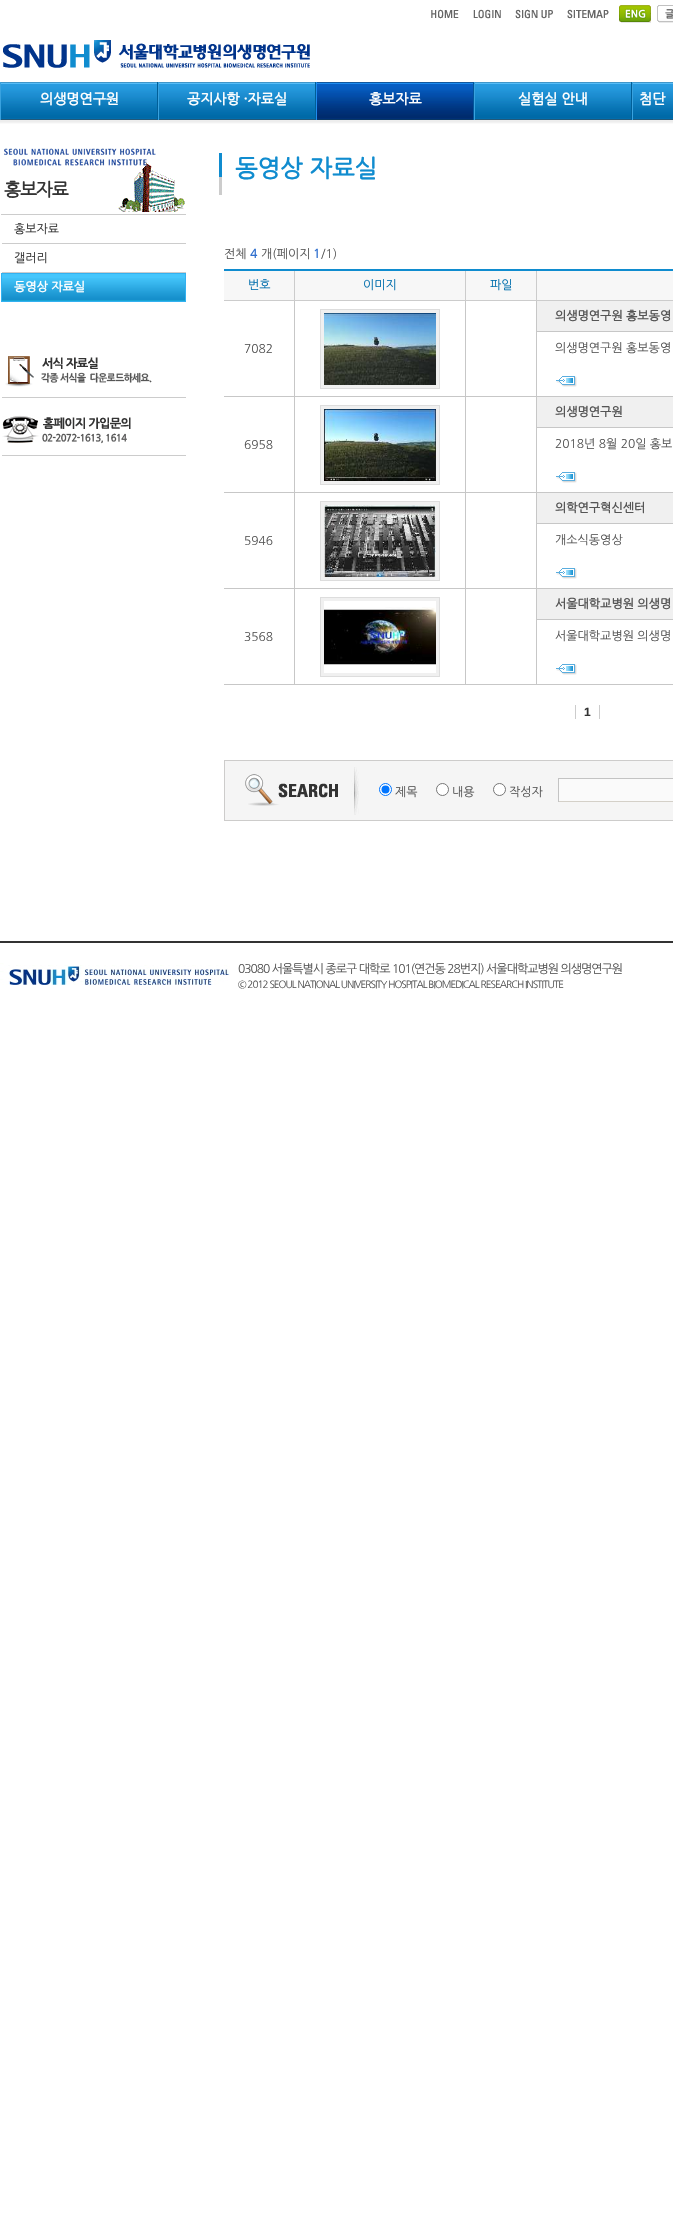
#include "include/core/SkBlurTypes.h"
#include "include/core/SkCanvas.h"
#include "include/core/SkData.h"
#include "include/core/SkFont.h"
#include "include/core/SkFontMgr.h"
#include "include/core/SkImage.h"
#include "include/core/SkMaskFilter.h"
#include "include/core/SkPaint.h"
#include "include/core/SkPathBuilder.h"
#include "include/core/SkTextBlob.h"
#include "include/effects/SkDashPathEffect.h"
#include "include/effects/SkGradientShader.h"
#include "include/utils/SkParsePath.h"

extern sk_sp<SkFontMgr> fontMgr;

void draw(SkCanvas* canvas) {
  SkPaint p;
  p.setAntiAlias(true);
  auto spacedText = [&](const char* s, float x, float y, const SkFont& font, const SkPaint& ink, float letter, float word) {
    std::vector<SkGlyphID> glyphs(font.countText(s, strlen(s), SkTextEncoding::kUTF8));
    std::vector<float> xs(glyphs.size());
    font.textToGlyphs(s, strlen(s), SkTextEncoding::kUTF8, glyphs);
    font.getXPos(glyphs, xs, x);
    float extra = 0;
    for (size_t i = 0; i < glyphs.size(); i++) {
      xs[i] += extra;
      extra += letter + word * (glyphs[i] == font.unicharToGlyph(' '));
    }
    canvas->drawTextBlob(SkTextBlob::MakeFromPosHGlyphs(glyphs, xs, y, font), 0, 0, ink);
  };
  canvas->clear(SK_ColorWHITE);
  canvas->drawImageRect(SkImages::DeferredFromEncodedData(SkData::MakeFromFileName("images/1.png")), SkRect::MakeLTRB(0, 82, 673, 124), SkSamplingOptions());
  canvas->drawImageRect(SkImages::DeferredFromEncodedData(SkData::MakeFromFileName("images/2.png")), SkRect::MakeLTRB(431, 9, 459, 19), SkSamplingOptions());
  canvas->drawImageRect(SkImages::DeferredFromEncodedData(SkData::MakeFromFileName("images/3.png")), SkRect::MakeLTRB(473, 9, 501, 19), SkSamplingOptions());
  canvas->drawImageRect(SkImages::DeferredFromEncodedData(SkData::MakeFromFileName("images/4.png")), SkRect::MakeLTRB(515, 9, 553, 19), SkSamplingOptions());
  canvas->drawImageRect(SkImages::DeferredFromEncodedData(SkData::MakeFromFileName("images/5.png")), SkRect::MakeLTRB(567, 9, 609, 19), SkSamplingOptions());
  canvas->drawImageRect(SkImages::DeferredFromEncodedData(SkData::MakeFromFileName("images/6.png")), SkRect::MakeLTRB(619, 5, 651, 23), SkSamplingOptions());
  canvas->drawImageRect(SkImages::DeferredFromEncodedData(SkData::MakeFromFileName("images/7.png")), SkRect::MakeLTRB(657, 5, 673, 23), SkSamplingOptions());
  canvas->drawImageRect(SkImages::DeferredFromEncodedData(SkData::MakeFromFileName("images/8.png")), SkRect::MakeLTRB(3, 40, 310, 68), SkSamplingOptions());
  p.setColor(SkColorSetRGB(35, 88, 120));
  canvas->drawRect(SkRect::MakeLTRB(0, 119, 316, 120), p);
  p.setColor(SkColorSetRGB(1, 95, 152));
  canvas->drawRect(SkRect::MakeLTRB(157, 82, 158, 120), p);
  p.setColor(SkColorSetRGB(57, 162, 223));
  canvas->drawRect(SkRect::MakeLTRB(0, 82, 1, 120), p);
  p.setColor(SkColorSetRGB(1, 95, 152));
  canvas->drawRect(SkRect::MakeLTRB(315, 82, 316, 120), p);
  p.setColor(SkColorSetRGB(57, 162, 223));
  canvas->drawRect(SkRect::MakeLTRB(158, 82, 159, 120), p);
  canvas->drawImageRect(SkImages::DeferredFromEncodedData(SkData::MakeFromFileName("images/9.png")), SkRect::MakeLTRB(317, 82, 473, 120), SkSamplingOptions());
  p.setColor(SkColorSetRGB(2, 86, 155));
  canvas->drawRect(SkRect::MakeLTRB(473, 82, 474, 120), p);
  p.setColor(SkColorSetRGB(30, 140, 239));
  canvas->drawRect(SkRect::MakeLTRB(316, 82, 317, 120), p);
  p.setColor(SkColorSetRGB(35, 88, 120));
  canvas->drawRect(SkRect::MakeLTRB(474, 119, 673, 120), p);
  p.setColor(SkColorSetRGB(1, 95, 152));
  canvas->drawRect(SkRect::MakeLTRB(631, 82, 632, 120), p);
  p.setColor(SkColorSetRGB(57, 162, 223));
  canvas->drawRect(SkRect::MakeLTRB(474, 82, 475, 120), p);
  canvas->drawRect(SkRect::MakeLTRB(632, 82, 633, 120), p);
  canvas->drawImageRect(SkImages::DeferredFromEncodedData(SkData::MakeFromFileName("images/10.png")), SkRect::MakeLTRB(4, 148, 185, 212), SkSamplingOptions());
  p.setColor(SkColorSetRGB(204, 204, 204));
  canvas->drawRect(SkRect::MakeLTRB(1, 214, 186, 215), p);
  canvas->drawRect(SkRect::MakeLTRB(1, 243, 186, 244), p);
  p.setColor(SK_ColorWHITE);
  canvas->drawRect(SkRect::MakeLTRB(1, 243, 2, 244), p);
  p.setColor(SkColorSetRGB(204, 204, 204));
  canvas->drawRect(SkRect::MakeLTRB(1, 272, 186, 273), p);
  p.setColor(SK_ColorWHITE);
  canvas->drawRect(SkRect::MakeLTRB(1, 272, 2, 273), p);
  p.setColor(SkColorSetRGB(69, 198, 252));
  canvas->drawRect(SkRect::MakeLTRB(2, 274, 185, 278), p);
  canvas->drawImageRect(SkImages::DeferredFromEncodedData(SkData::MakeFromFileName("images/11.png")), SkRect::MakeLTRB(2, 278, 185, 301), SkSamplingOptions());
  p.setStyle(SkPaint::kStroke_Style);
  p.setStrokeWidth(1);
  p.setColor(SkColorSetRGB(51, 177, 240));
  canvas->drawRect(SkRect::MakeLTRB(1.5f, 273.5f, 185.5f, 301.5f), p);
  p.setStyle(SkPaint::kFill_Style);
  p.setColor(SkColorSetRGB(204, 204, 204));
  canvas->drawRect(SkRect::MakeLTRB(2, 397, 186, 398), p);
  canvas->drawImageRect(SkImages::DeferredFromEncodedData(SkData::MakeFromFileName("images/12.png")), SkRect::MakeLTRB(5, 356, 152, 387), SkSamplingOptions());
  canvas->drawRect(SkRect::MakeLTRB(2, 455, 186, 456), p);
  canvas->drawImageRect(SkImages::DeferredFromEncodedData(SkData::MakeFromFileName("images/13.png")), SkRect::MakeLTRB(2, 415, 131, 444), SkSamplingOptions());
  canvas->drawImageRect(SkImages::DeferredFromEncodedData(SkData::MakeFromFileName("images/14.png")), SkRect::MakeLTRB(219, 153, 222, 195), SkSamplingOptions());
  p.setColor(SkColorSetRGB(199, 199, 199));
  canvas->drawRect(SkRect::MakeLTRB(536, 684, 673, 685), p);
  canvas->drawRect(SkRect::MakeLTRB(536, 588, 537, 685), p);
  canvas->drawRect(SkRect::MakeLTRB(536, 588, 673, 589), p);
  canvas->drawRect(SkRect::MakeLTRB(536, 492, 537, 589), p);
  canvas->drawRect(SkRect::MakeLTRB(536, 492, 673, 493), p);
  canvas->drawRect(SkRect::MakeLTRB(536, 396, 537, 493), p);
  canvas->drawRect(SkRect::MakeLTRB(536, 396, 673, 397), p);
  canvas->drawRect(SkRect::MakeLTRB(536, 300, 537, 397), p);
  p.setColor(SkColorSetRGB(204, 204, 204));
  canvas->drawRect(SkRect::MakeLTRB(536, 300, 673, 301), p);
  canvas->drawRect(SkRect::MakeLTRB(536, 270, 537, 301), p);
  p.setColor(SkColorSetRGB(199, 199, 199));
  canvas->drawRect(SkRect::MakeLTRB(465, 684, 537, 685), p);
  canvas->drawRect(SkRect::MakeLTRB(465, 588, 466, 685), p);
  canvas->drawRect(SkRect::MakeLTRB(465, 588, 537, 589), p);
  canvas->drawRect(SkRect::MakeLTRB(465, 492, 466, 589), p);
  canvas->drawRect(SkRect::MakeLTRB(465, 492, 537, 493), p);
  canvas->drawRect(SkRect::MakeLTRB(465, 396, 466, 493), p);
  canvas->drawRect(SkRect::MakeLTRB(465, 396, 537, 397), p);
  canvas->drawRect(SkRect::MakeLTRB(465, 300, 466, 397), p);
  p.setColor(SkColorSetRGB(204, 204, 204));
  canvas->drawRect(SkRect::MakeLTRB(465, 300, 537, 301), p);
  canvas->drawRect(SkRect::MakeLTRB(465, 270, 466, 301), p);
  p.setColor(SkColorSetRGB(199, 199, 199));
  canvas->drawRect(SkRect::MakeLTRB(294, 684, 466, 685), p);
  canvas->drawRect(SkRect::MakeLTRB(294, 588, 295, 685), p);
  canvas->drawRect(SkRect::MakeLTRB(294, 588, 466, 589), p);
  canvas->drawRect(SkRect::MakeLTRB(294, 492, 295, 589), p);
  canvas->drawRect(SkRect::MakeLTRB(294, 492, 466, 493), p);
  canvas->drawRect(SkRect::MakeLTRB(294, 396, 295, 493), p);
  canvas->drawRect(SkRect::MakeLTRB(294, 396, 466, 397), p);
  canvas->drawRect(SkRect::MakeLTRB(294, 300, 295, 397), p);
  p.setColor(SkColorSetRGB(204, 204, 204));
  canvas->drawRect(SkRect::MakeLTRB(294, 300, 466, 301), p);
  canvas->drawRect(SkRect::MakeLTRB(294, 270, 295, 301), p);
  p.setColor(SkColorSetRGB(16, 140, 207));
  canvas->drawRect(SkRect::MakeLTRB(224, 269, 673, 271), p);
  p.setColor(SkColorSetRGB(247, 247, 247));
  canvas->drawRect(SkRect::MakeLTRB(224, 271, 294, 300), p);
  p.setColor(SkColorSetRGB(204, 204, 204));
  canvas->drawRect(SkRect::MakeLTRB(224, 300, 295, 301), p);
  p.setColor(SkColorSetRGB(247, 247, 247));
  canvas->drawRect(SkRect::MakeLTRB(295, 271, 465, 300), p);
  canvas->drawRect(SkRect::MakeLTRB(466, 271, 536, 300), p);
  canvas->drawRect(SkRect::MakeLTRB(537, 271, 673, 300), p);
  p.setColor(SkColorSetRGB(199, 199, 199));
  canvas->drawRect(SkRect::MakeLTRB(224, 396, 295, 397), p);
  p.setStyle(SkPaint::kStroke_Style);
  p.setStrokeWidth(3);
  p.setColor(SkColorSetRGB(240, 240, 240));
  canvas->drawRect(SkRect::MakeLTRB(322.5f, 311.5f, 437.5f, 386.5f), p);
  canvas->drawImageRect(SkImages::DeferredFromEncodedData(SkData::MakeFromFileName("images/15.png")), SkRect::MakeLTRB(324, 313, 436, 385), SkSamplingOptions());
  p.setStrokeWidth(1);
  p.setColor(SkColorSetRGB(221, 221, 221));
  canvas->drawRect(SkRect::MakeLTRB(320.5f, 309.5f, 439.5f, 388.5f), p);
  p.setStyle(SkPaint::kFill_Style);
  p.setColor(SkColorSetRGB(240, 240, 240));
  canvas->drawRect(SkRect::MakeLTRB(537, 301, 673, 331), p);
  p.setColor(SkColorSetRGB(199, 199, 199));
  canvas->drawRect(SkRect::MakeLTRB(537, 331, 673, 332), p);
  canvas->drawImageRect(SkImages::DeferredFromEncodedData(SkData::MakeFromFileName("images/16.png")), SkRect::MakeLTRB(556, 376, 577, 387), SkSamplingOptions());
  canvas->drawRect(SkRect::MakeLTRB(224, 492, 295, 493), p);
  p.setStyle(SkPaint::kStroke_Style);
  p.setStrokeWidth(3);
  p.setColor(SkColorSetRGB(240, 240, 240));
  canvas->drawRect(SkRect::MakeLTRB(322.5f, 407.5f, 437.5f, 482.5f), p);
  canvas->drawImageRect(SkImages::DeferredFromEncodedData(SkData::MakeFromFileName("images/17.png")), SkRect::MakeLTRB(324, 409, 436, 481), SkSamplingOptions());
  p.setStrokeWidth(1);
  p.setColor(SkColorSetRGB(221, 221, 221));
  canvas->drawRect(SkRect::MakeLTRB(320.5f, 405.5f, 439.5f, 484.5f), p);
  p.setStyle(SkPaint::kFill_Style);
  p.setColor(SkColorSetRGB(240, 240, 240));
  canvas->drawRect(SkRect::MakeLTRB(537, 397, 673, 427), p);
  p.setColor(SkColorSetRGB(199, 199, 199));
  canvas->drawRect(SkRect::MakeLTRB(537, 427, 673, 428), p);
  canvas->drawImageRect(SkImages::DeferredFromEncodedData(SkData::MakeFromFileName("images/16.png")), SkRect::MakeLTRB(556, 472, 577, 483), SkSamplingOptions());
  canvas->drawRect(SkRect::MakeLTRB(224, 588, 295, 589), p);
  p.setStyle(SkPaint::kStroke_Style);
  p.setStrokeWidth(3);
  p.setColor(SkColorSetRGB(240, 240, 240));
  canvas->drawRect(SkRect::MakeLTRB(322.5f, 503.5f, 437.5f, 578.5f), p);
  canvas->drawImageRect(SkImages::DeferredFromEncodedData(SkData::MakeFromFileName("images/18.png")), SkRect::MakeLTRB(324, 505, 436, 577), SkSamplingOptions());
  p.setStrokeWidth(1);
  p.setColor(SkColorSetRGB(221, 221, 221));
  canvas->drawRect(SkRect::MakeLTRB(320.5f, 501.5f, 439.5f, 580.5f), p);
  p.setStyle(SkPaint::kFill_Style);
  p.setColor(SkColorSetRGB(240, 240, 240));
  canvas->drawRect(SkRect::MakeLTRB(537, 493, 673, 523), p);
  p.setColor(SkColorSetRGB(199, 199, 199));
  canvas->drawRect(SkRect::MakeLTRB(537, 523, 673, 524), p);
  canvas->drawImageRect(SkImages::DeferredFromEncodedData(SkData::MakeFromFileName("images/16.png")), SkRect::MakeLTRB(556, 568, 577, 579), SkSamplingOptions());
  canvas->drawRect(SkRect::MakeLTRB(224, 684, 295, 685), p);
  p.setStyle(SkPaint::kStroke_Style);
  p.setStrokeWidth(3);
  p.setColor(SkColorSetRGB(240, 240, 240));
  canvas->drawRect(SkRect::MakeLTRB(322.5f, 599.5f, 437.5f, 674.5f), p);
  canvas->drawImageRect(SkImages::DeferredFromEncodedData(SkData::MakeFromFileName("images/19.png")), SkRect::MakeLTRB(324, 607, 436, 665), SkSamplingOptions());
  p.setStrokeWidth(1);
  p.setColor(SkColorSetRGB(221, 221, 221));
  canvas->drawRect(SkRect::MakeLTRB(320.5f, 597.5f, 439.5f, 676.5f), p);
  p.setStyle(SkPaint::kFill_Style);
  p.setColor(SkColorSetRGB(240, 240, 240));
  canvas->drawRect(SkRect::MakeLTRB(537, 589, 673, 619), p);
  p.setColor(SkColorSetRGB(199, 199, 199));
  canvas->drawRect(SkRect::MakeLTRB(537, 619, 673, 620), p);
  canvas->drawImageRect(SkImages::DeferredFromEncodedData(SkData::MakeFromFileName("images/16.png")), SkRect::MakeLTRB(556, 664, 577, 675), SkSamplingOptions());
  p.setColor(SkColorSetRGB(204, 204, 204));
  canvas->drawRect(SkRect::MakeLTRB(599, 705, 600, 719), p);
  canvas->drawRect(SkRect::MakeLTRB(575, 705, 576, 719), p);
  p.setColor(SkColorSetRGB(245, 245, 245));
  canvas->drawRect(SkRect::MakeLTRB(224.5f, 760.5f, 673.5f, 820.5f), p);
  p.setStyle(SkPaint::kStroke_Style);
  p.setColor(SkColorSetRGB(205, 204, 203));
  canvas->drawRect(SkRect::MakeLTRB(224.5f, 760.5f, 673.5f, 820.5f), p);
  canvas->drawImageRect(SkImages::DeferredFromEncodedData(SkData::MakeFromFileName("images/20.png")), SkRect::MakeLTRB(245, 767, 359, 815), SkSamplingOptions());
  p.setStyle(SkPaint::kFill_Style);
  p.setColor(SK_ColorWHITE);
  canvas->drawCircle(385.5f, 789.5f, 6, p);
  p.setStyle(SkPaint::kStroke_Style);
  p.setColor(SkColorSetRGB(0, 117, 255));
  canvas->drawCircle(385.5f, 789.5f, 6, p);
  p.setStyle(SkPaint::kFill_Style);
  canvas->drawCircle(385.5f, 789.5f, 4, p);
  p.setColor(SK_ColorWHITE);
  canvas->drawCircle(442.5f, 789.5f, 6, p);
  p.setStyle(SkPaint::kStroke_Style);
  p.setColor(SkColorSetRGB(118, 118, 118));
  canvas->drawCircle(442.5f, 789.5f, 6, p);
  p.setStyle(SkPaint::kFill_Style);
  p.setColor(SK_ColorWHITE);
  canvas->drawCircle(499.5f, 789.5f, 6, p);
  p.setStyle(SkPaint::kStroke_Style);
  p.setColor(SkColorSetRGB(118, 118, 118));
  canvas->drawCircle(499.5f, 789.5f, 6, p);
  p.setStyle(SkPaint::kFill_Style);
  p.setColor(SkColorSetRGB(250, 250, 250));
  canvas->drawRect(SkRect::MakeLTRB(559, 779, 673, 801), p);
  p.setColor(SkColorSetRGB(195, 195, 195));
  canvas->drawRect(SkRect::MakeLTRB(558, 778, 673, 779), p);
  p.setColor(SkColorSetRGB(212, 208, 200));
  canvas->drawRect(SkRect::MakeLTRB(558, 801, 673, 802), p);
  p.setColor(SkColorSetRGB(195, 195, 195));
  canvas->drawRect(SkRect::MakeLTRB(558, 778, 559, 802), p);
  p.setColor(SkColorSetRGB(51, 51, 51));
  canvas->drawRect(SkRect::MakeLTRB(0, 941, 673, 943), p);
  canvas->drawImageRect(SkImages::DeferredFromEncodedData(SkData::MakeFromFileName("images/21.png")), SkRect::MakeLTRB(0, 963, 230, 985), SkSamplingOptions());
  SkFont font1(fontMgr->matchFamilyStyle("NanumGothic", SkFontStyle::Bold()), 14);
  font1.setSubpixel(true);
  p.setColor(SK_ColorWHITE);
  canvas->drawString("의생명연구원", 40, 104, font1, p);
  canvas->drawString("공지사항 ·자료실", 187, 104, font1, p);
  canvas->drawString("홍보자료", 369, 104, font1, p);
  canvas->drawString("실험실 안내", 518, 104, font1, p);
  canvas->drawString("첨단", 639, 104, font1, p);
  SkFont font2(fontMgr->matchFamilyStyle("NanumGothic", SkFontStyle::Bold()), 18);
  font2.setSubpixel(true);
  p.setColor(SkColorSetRGB(51, 51, 51));
  spacedText("홍보자료", 4, 196, font2, p, -1, 0);
  SkFont font3(fontMgr->matchFamilyStyle("NanumGothic", SkFontStyle::Normal()), 12);
  font3.setSubpixel(true);
  canvas->drawString("홍보자료", 14, 233, font3, p);
  canvas->drawString("갤러리", 14, 262, font3, p);
  SkFont font4(fontMgr->matchFamilyStyle("NanumGothic", SkFontStyle::Bold()), 12);
  font4.setSubpixel(true);
  p.setColor(SK_ColorWHITE);
  canvas->drawString("동영상 자료실", 14, 291, font4, p);
  SkFont font5(fontMgr->matchFamilyStyle("NanumGothic", SkFontStyle::Bold()), 24);
  font5.setSubpixel(true);
  p.setColor(SkColorSetRGB(16, 140, 207));
  canvas->drawString("동영상 자료실", 235, 177, font5, p);
  p.setColor(SkColorSetRGB(85, 85, 85));
  canvas->drawString("전체", 224, 258, font3, p);
  p.setColor(SkColorSetRGB(47, 111, 206));
  canvas->drawString("4", 250, 258, font4, p);
  p.setColor(SkColorSetRGB(85, 85, 85));
  canvas->drawString("개(페이지", 261, 258, font3, p);
  p.setColor(SkColorSetRGB(47, 111, 206));
  canvas->drawString("1", 313, 258, font4, p);
  p.setColor(SkColorSetRGB(85, 85, 85));
  canvas->drawString("/1)", 321, 258, font3, p);
  p.setColor(SkColorSetRGB(0, 110, 173));
  canvas->drawString("번호", 248, 289, font3, p);
  canvas->drawString("이미지", 363, 289, font3, p);
  canvas->drawString("파일", 490, 289, font3, p);
  p.setColor(SkColorSetRGB(85, 85, 85));
  canvas->drawString("7082", 244, 353, font3, p);
  canvas->drawString("의생명연구원 홍보동영", 555, 320, font4, p);
  canvas->drawString("의생명연구원 홍보동영", 555, 352, font3, p);
  canvas->drawString("6958", 244, 449, font3, p);
  canvas->drawString("의생명연구원", 555, 416, font4, p);
  canvas->drawString("2018년 8월 20일 홍보", 555, 448, font3, p);
  canvas->drawString("5946", 244, 545, font3, p);
  canvas->drawString("의학연구혁신센터", 555, 512, font4, p);
  canvas->drawString("개소식동영상", 555, 544, font3, p);
  canvas->drawString("3568", 244, 641, font3, p);
  canvas->drawString("서울대학교병원 의생명", 555, 608, font4, p);
  canvas->drawString("서울대학교병원 의생명", 555, 640, font3, p);
  SkFont font6(fontMgr->matchFamilyStyle("Liberation Sans", SkFontStyle::Bold()), 12);
  font6.setSubpixel(true);
  p.setColor(SkColorSetRGB(51, 51, 51));
  canvas->drawString("1", 584, 716, font6, p);
  p.setColor(SkColorSetRGB(85, 85, 85));
  canvas->drawString("제목", 395, 796, font3, p);
  canvas->drawString("내용", 452, 796, font3, p);
  canvas->drawString("작성자", 509, 796, font3, p);
  spacedText("03080 서울특별시 종로구 대학로 101(연건동 28번지) 서울대학교병원 의생명연구원", 238, 973, font3, p, -1, 0);
  SkFont font7(fontMgr->matchFamilyStyle("NanumGothic", SkFontStyle::Normal()), 10);
  font7.setSubpixel(true);
  spacedText("© 2012 SEOUL NATIONAL UNIVERSITY HOSPITAL BIOMEDICAL RESEARCH INSTITUTE", 238, 988, font7, p, -1, 0);
}
